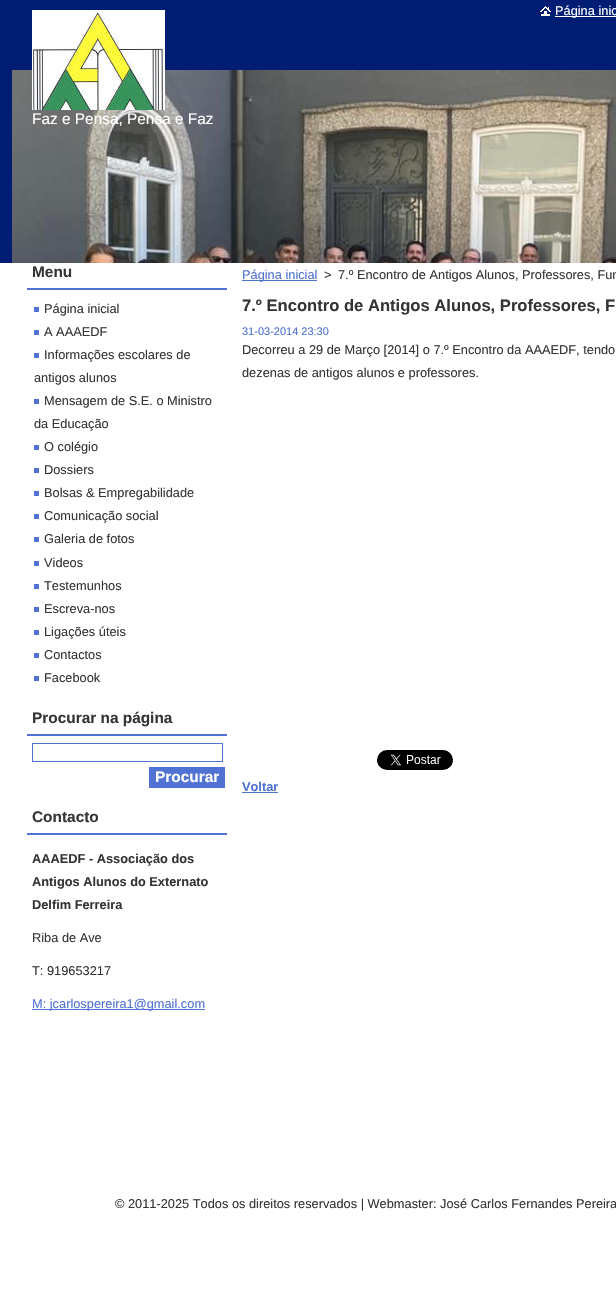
#include "include/core/SkBlurTypes.h"
#include "include/core/SkCanvas.h"
#include "include/core/SkData.h"
#include "include/core/SkFont.h"
#include "include/core/SkFontMgr.h"
#include "include/core/SkImage.h"
#include "include/core/SkMaskFilter.h"
#include "include/core/SkPaint.h"
#include "include/core/SkPathBuilder.h"
#include "include/core/SkTextBlob.h"
#include "include/effects/SkDashPathEffect.h"
#include "include/effects/SkGradientShader.h"
#include "include/utils/SkParsePath.h"

extern sk_sp<SkFontMgr> fontMgr;

void draw(SkCanvas* canvas) {
  SkPaint p;
  p.setAntiAlias(true);
  canvas->clear(SK_ColorWHITE);
  p.setColor(SkColorSetRGB(1, 28, 115));
  canvas->drawRect(SkRect::MakeLTRB(0, 0, 12, 263), p);
  canvas->drawRect(SkRect::MakeLTRB(12, 0, 616, 70), p);
  canvas->drawImageRect(SkImages::DeferredFromEncodedData(SkData::MakeFromFileName("images/1.png")), SkRect::MakeLTRB(540, 6, 551, 16), SkSamplingOptions());
  p.setColor(SK_ColorWHITE);
  canvas->drawRect(SkRect::MakeLTRB(555, 16, 616, 17), p);
  canvas->drawImageRect(SkImages::DeferredFromEncodedData(SkData::MakeFromFileName("images/2.png")), SkRect::MakeLTRB(12, 70, 616, 263), SkSamplingOptions());
  canvas->drawImageRect(SkImages::DeferredFromEncodedData(SkData::MakeFromFileName("images/3.png")), SkRect::MakeLTRB(32, 10, 165, 110), SkSamplingOptions());
  p.setColor(SkColorSetRGB(79, 114, 211));
  canvas->drawRect(SkRect::MakeLTRB(27, 288, 227, 290), p);
  p.setColor(SkColorSetRGB(80, 114, 211));
  canvas->drawRect(SkRect::MakeLTRB(34, 307, 39, 312), p);
  canvas->drawRect(SkRect::MakeLTRB(34, 330, 39, 335), p);
  canvas->drawRect(SkRect::MakeLTRB(34, 353, 39, 358), p);
  canvas->drawRect(SkRect::MakeLTRB(34, 399, 39, 404), p);
  canvas->drawRect(SkRect::MakeLTRB(34, 445, 39, 450), p);
  canvas->drawRect(SkRect::MakeLTRB(34, 468, 39, 473), p);
  canvas->drawRect(SkRect::MakeLTRB(34, 491, 39, 496), p);
  canvas->drawRect(SkRect::MakeLTRB(34, 514, 39, 519), p);
  canvas->drawRect(SkRect::MakeLTRB(34, 537, 39, 542), p);
  canvas->drawRect(SkRect::MakeLTRB(34, 561, 39, 566), p);
  canvas->drawRect(SkRect::MakeLTRB(34, 584, 39, 589), p);
  canvas->drawRect(SkRect::MakeLTRB(34, 607, 39, 612), p);
  canvas->drawRect(SkRect::MakeLTRB(34, 630, 39, 635), p);
  canvas->drawRect(SkRect::MakeLTRB(34, 653, 39, 658), p);
  canvas->drawRect(SkRect::MakeLTRB(34, 676, 39, 681), p);
  p.setColor(SkColorSetRGB(79, 114, 211));
  canvas->drawRect(SkRect::MakeLTRB(27, 734, 227, 736), p);
  p.setStyle(SkPaint::kStroke_Style);
  p.setStrokeWidth(1);
  canvas->drawRect(SkRect::MakeLTRB(32.5f, 743.5f, 222.5f, 761.5f), p);
  p.setStyle(SkPaint::kFill_Style);
  canvas->drawRect(SkRect::MakeLTRB(149, 767, 225, 788), p);
  canvas->drawRect(SkRect::MakeLTRB(27, 833, 227, 835), p);
  canvas->drawRect(SkRect::MakeLTRB(32, 1009, 205, 1010), p);
  canvas->drawRect(SkRect::MakeLTRB(242, 280, 317, 281), p);
  canvas->drawImageRect(SkImages::DeferredFromEncodedData(SkData::MakeFromFileName("images/4.png")), SkRect::MakeLTRB(377, 750, 453, 770), SkSamplingOptions());
  canvas->drawRect(SkRect::MakeLTRB(242, 792, 278, 793), p);
  SkFont font1(fontMgr->matchFamilyStyle("Liberation Sans", SkFontStyle::Normal()), 12.8f);
  font1.setSubpixel(true);
  p.setColor(SK_ColorWHITE);
  canvas->drawString("Página inic", 555, 15, font1, p);
  SkFont font2(fontMgr->matchFamilyStyle("Liberation Sans", SkFontStyle::Normal()), 15.4f);
  font2.setSubpixel(true);
  canvas->drawString("Faz e Pensa, Pensa e Faz", 32, 124, font2, p);
  SkFont font3(fontMgr->matchFamilyStyle("Liberation Sans", SkFontStyle::Bold()), 15.4f);
  font3.setSubpixel(true);
  p.setColor(SkColorSetRGB(53, 53, 53));
  canvas->drawString("Menu", 32, 277, font3, p);
  canvas->drawString("Página inicial", 44, 313, font1, p);
  canvas->drawString("A AAAEDF", 44, 336, font1, p);
  canvas->drawString("Informações escolares de", 44, 359, font1, p);
  canvas->drawString("antigos alunos", 34, 382, font1, p);
  canvas->drawString("Mensagem de S.E. o Ministro", 44, 405, font1, p);
  canvas->drawString("da Educação", 34, 428, font1, p);
  canvas->drawString("O colégio", 44, 451, font1, p);
  canvas->drawString("Dossiers", 44, 474, font1, p);
  canvas->drawString("Bolsas & Empregabilidade", 44, 497, font1, p);
  canvas->drawString("Comunicação social", 44, 520, font1, p);
  canvas->drawString("Galeria de fotos", 44, 543, font1, p);
  canvas->drawString("Videos", 44, 567, font1, p);
  canvas->drawString("Testemunhos", 44, 590, font1, p);
  canvas->drawString("Escreva-nos", 44, 613, font1, p);
  canvas->drawString("Ligações úteis", 44, 636, font1, p);
  canvas->drawString("Contactos", 44, 659, font1, p);
  canvas->drawString("Facebook", 44, 682, font1, p);
  canvas->drawString("Procurar na página", 32, 723, font3, p);
  p.setColor(SK_ColorWHITE);
  canvas->drawString("Procurar", 155, 782, font3, p);
  p.setColor(SkColorSetRGB(53, 53, 53));
  canvas->drawString("Contacto", 32, 822, font3, p);
  SkFont font4(fontMgr->matchFamilyStyle("Liberation Sans", SkFontStyle::Bold()), 12.8f);
  font4.setSubpixel(true);
  canvas->drawString("AAAEDF - Associação dos", 32, 863, font4, p);
  canvas->drawString("Antigos Alunos do Externato", 32, 886, font4, p);
  canvas->drawString("Delfim Ferreira", 32, 909, font4, p);
  canvas->drawString("Riba de Ave", 32, 942, font1, p);
  canvas->drawString("T: 919653217", 32, 975, font1, p);
  p.setColor(SkColorSetRGB(79, 114, 211));
  canvas->drawString("M: jcarlospereira1@gmail.com", 32, 1008, font1, p);
  canvas->drawString("Página inicial", 242, 279, font1, p);
  p.setColor(SkColorSetRGB(53, 53, 53));
  canvas->drawString(">", 324, 279, font1, p);
  canvas->drawString("7.º Encontro de Antigos Alunos, Professores, Fun", 338, 279, font1, p);
  SkFont font5(fontMgr->matchFamilyStyle("Liberation Sans", SkFontStyle::Bold()), 16.6f);
  font5.setSubpixel(true);
  canvas->drawString("7.º Encontro de Antigos Alunos, Professores, F", 242, 311, font5, p);
  SkFont font6(fontMgr->matchFamilyStyle("Liberation Sans", SkFontStyle::Normal()), 11);
  font6.setSubpixel(true);
  p.setColor(SkColorSetRGB(79, 114, 211));
  canvas->drawString("31-03-2014 23:30", 242, 335, font6, p);
  p.setColor(SkColorSetRGB(53, 53, 53));
  canvas->drawString("Decorreu a 29 de Março [2014] o 7.º Encontro da AAAEDF, tendo", 242, 354, font1, p);
  canvas->drawString("dezenas de antigos alunos e professores.", 242, 377, font1, p);
  p.setColor(SkColorSetRGB(79, 114, 211));
  canvas->drawString("Voltar", 242, 791, font4, p);
  p.setColor(SkColorSetRGB(53, 53, 53));
  canvas->drawString("© 2011-2025 Todos os direitos reservados | Webmaster: José Carlos Fernandes Pereira", 115, 1208, font1, p);
}
